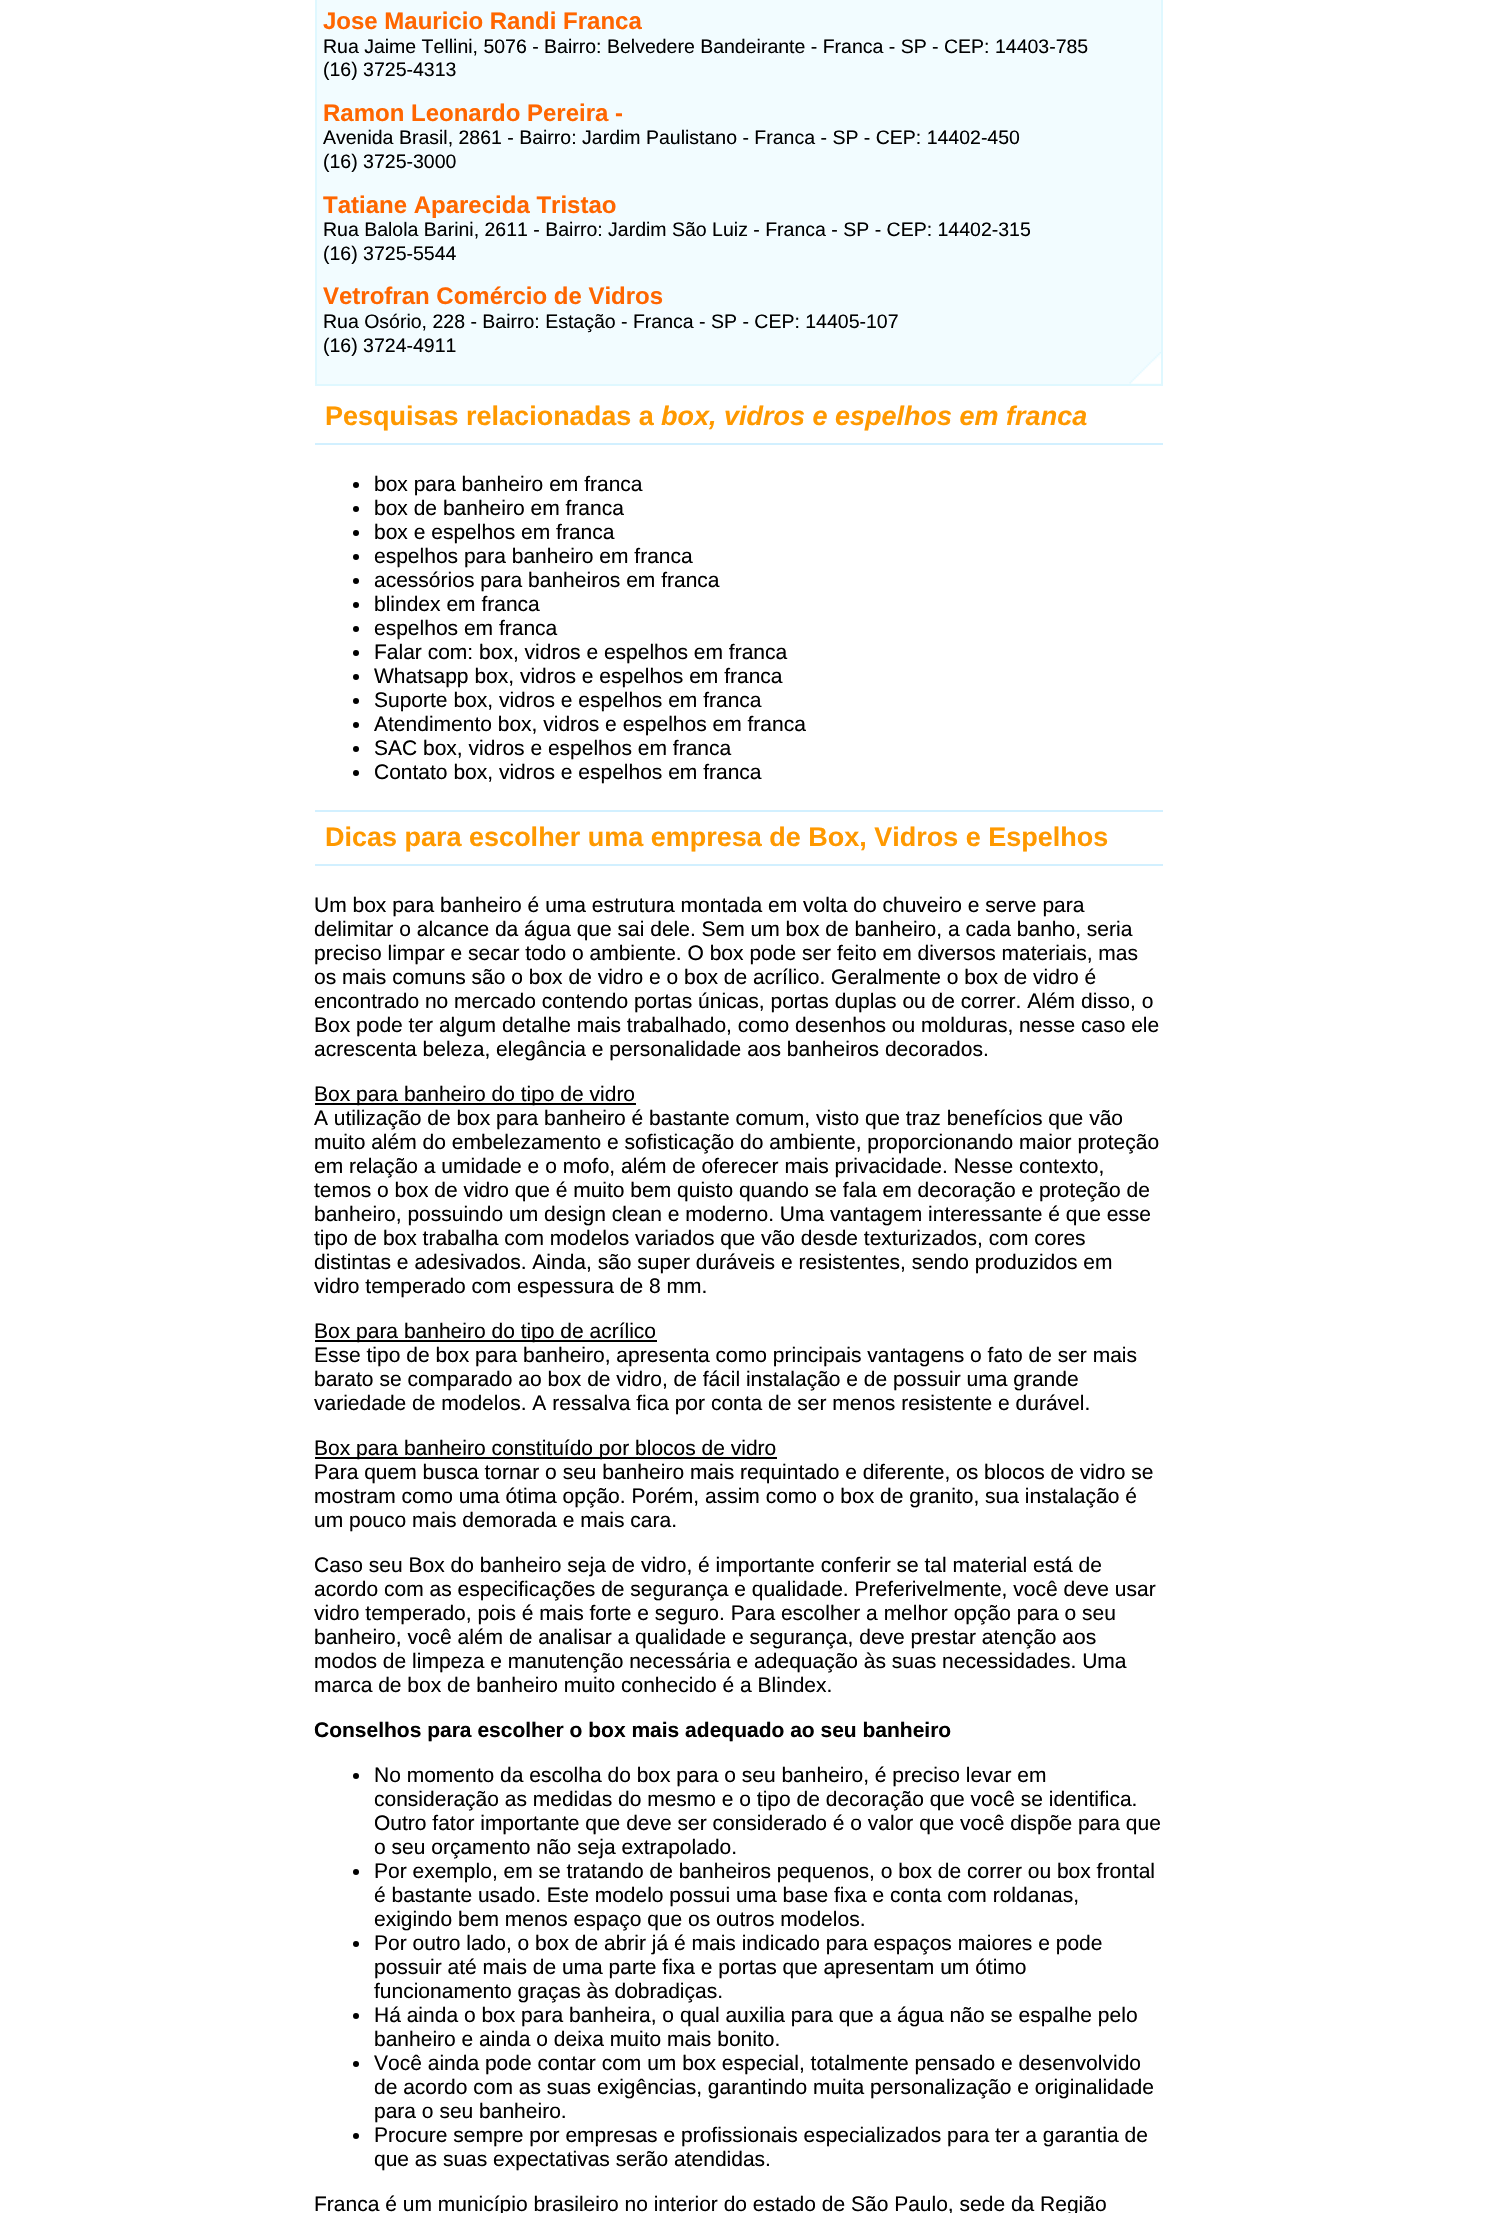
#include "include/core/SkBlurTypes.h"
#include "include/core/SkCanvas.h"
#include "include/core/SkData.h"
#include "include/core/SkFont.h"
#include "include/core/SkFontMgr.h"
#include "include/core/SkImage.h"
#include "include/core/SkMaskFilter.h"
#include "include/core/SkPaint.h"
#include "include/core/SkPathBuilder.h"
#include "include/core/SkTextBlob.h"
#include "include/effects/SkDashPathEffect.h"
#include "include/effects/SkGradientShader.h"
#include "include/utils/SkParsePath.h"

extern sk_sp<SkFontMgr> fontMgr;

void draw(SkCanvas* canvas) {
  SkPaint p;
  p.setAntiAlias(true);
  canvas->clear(SK_ColorWHITE);
  p.setColor(SkColorSetRGB(242, 252, 255));
  canvas->drawRect(SkRect::MakeLTRB(317, 0, 1161, 384), p);
  canvas->drawImageRect(SkImages::DeferredFromEncodedData(SkData::MakeFromFileName("images/1.png")), SkRect::MakeLTRB(1129, 352, 1161, 384), SkSamplingOptions());
  p.setStyle(SkPaint::kStroke_Style);
  p.setStrokeWidth(2);
  p.setColor(SkColorSetRGB(223, 248, 255));
  canvas->drawRect(SkRect::MakeLTRB(316, -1, 1162, 385), p);
  p.setStyle(SkPaint::kFill_Style);
  p.setColor(SkColorSetRGB(210, 240, 255));
  canvas->drawRect(SkRect::MakeLTRB(315, 443, 1163, 445), p);
  p.setColor(SK_ColorBLACK);
  canvas->drawCircle(356, 485, 3, p);
  canvas->drawCircle(356, 509, 3, p);
  canvas->drawCircle(356, 533, 3, p);
  canvas->drawCircle(356, 557, 3, p);
  canvas->drawCircle(356, 581, 3, p);
  canvas->drawCircle(356, 605, 3, p);
  canvas->drawCircle(356, 629, 3, p);
  canvas->drawCircle(356, 653, 3, p);
  canvas->drawCircle(356, 677, 3, p);
  canvas->drawCircle(356, 701, 3, p);
  canvas->drawCircle(356, 725, 3, p);
  canvas->drawCircle(356, 749, 3, p);
  canvas->drawCircle(356, 773, 3, p);
  p.setColor(SkColorSetRGB(210, 240, 255));
  canvas->drawRect(SkRect::MakeLTRB(315, 810, 1163, 812), p);
  canvas->drawRect(SkRect::MakeLTRB(315, 864, 1163, 866), p);
  p.setColor(SK_ColorBLACK);
  canvas->drawRect(SkRect::MakeLTRB(315, 1103, 636, 1105), p);
  canvas->drawRect(SkRect::MakeLTRB(315, 1340, 657, 1342), p);
  canvas->drawRect(SkRect::MakeLTRB(315, 1457, 777, 1459), p);
  canvas->drawCircle(356, 1776, 3, p);
  canvas->drawCircle(356, 1872, 3, p);
  canvas->drawCircle(356, 1944, 3, p);
  canvas->drawCircle(356, 2016, 3, p);
  canvas->drawCircle(356, 2064, 3, p);
  canvas->drawCircle(356, 2136, 3, p);
  SkFont font1(fontMgr->matchFamilyStyle("Liberation Sans", SkFontStyle::Bold()), 24);
  font1.setSubpixel(true);
  p.setColor(SkColorSetRGB(255, 102, 0));
  canvas->drawString("Jose Mauricio Randi Franca", 323, 29, font1, p);
  SkFont font2(fontMgr->matchFamilyStyle("Liberation Sans", SkFontStyle::Normal()), 19.5f);
  font2.setSubpixel(true);
  p.setColor(SK_ColorBLACK);
  canvas->drawString("Rua Jaime Tellini, 5076 - Bairro: Belvedere Bandeirante - Franca - SP - CEP: 14403-785", 323, 53, font2, p);
  canvas->drawString("(16) 3725-4313", 323, 76, font2, p);
  p.setColor(SkColorSetRGB(255, 102, 0));
  canvas->drawString("Ramon Leonardo Pereira -", 323, 121, font1, p);
  p.setColor(SK_ColorBLACK);
  canvas->drawString("Avenida Brasil, 2861 - Bairro: Jardim Paulistano - Franca - SP - CEP: 14402-450", 323, 144, font2, p);
  canvas->drawString("(16) 3725-3000", 323, 168, font2, p);
  p.setColor(SkColorSetRGB(255, 102, 0));
  canvas->drawString("Tatiane Aparecida Tristao", 323, 213, font1, p);
  p.setColor(SK_ColorBLACK);
  canvas->drawString("Rua Balola Barini, 2611 - Bairro: Jardim São Luiz - Franca - SP - CEP: 14402-315", 323, 236, font2, p);
  canvas->drawString("(16) 3725-5544", 323, 260, font2, p);
  p.setColor(SkColorSetRGB(255, 102, 0));
  canvas->drawString("Vetrofran Comércio de Vidros", 323, 304, font1, p);
  p.setColor(SK_ColorBLACK);
  canvas->drawString("Rua Osório, 228 - Bairro: Estação - Franca - SP - CEP: 14405-107", 323, 328, font2, p);
  canvas->drawString("(16) 3724-4911", 323, 352, font2, p);
  SkFont font3(fontMgr->matchFamilyStyle("Liberation Sans", SkFontStyle::Bold()), 27);
  font3.setSubpixel(true);
  p.setColor(SkColorSetRGB(255, 153, 0));
  canvas->drawString("Pesquisas relacionadas a", 325, 425, font3, p);
  SkFont font4(fontMgr->matchFamilyStyle("Liberation Sans", SkFontStyle::BoldItalic()), 27);
  font4.setSubpixel(true);
  canvas->drawString("box, vidros e espelhos em franca", 661, 425, font4, p);
  SkFont font5(fontMgr->matchFamilyStyle("Liberation Sans", SkFontStyle::Normal()), 21);
  font5.setSubpixel(true);
  p.setColor(SK_ColorBLACK);
  canvas->drawString("box para banheiro em franca", 374, 491, font5, p);
  canvas->drawString("box de banheiro em franca", 374, 515, font5, p);
  canvas->drawString("box e espelhos em franca", 374, 539, font5, p);
  canvas->drawString("espelhos para banheiro em franca", 374, 563, font5, p);
  canvas->drawString("acessórios para banheiros em franca", 374, 587, font5, p);
  canvas->drawString("blindex em franca", 374, 611, font5, p);
  canvas->drawString("espelhos em franca", 374, 635, font5, p);
  canvas->drawString("Falar com: box, vidros e espelhos em franca", 374, 659, font5, p);
  canvas->drawString("Whatsapp box, vidros e espelhos em franca", 374, 683, font5, p);
  canvas->drawString("Suporte box, vidros e espelhos em franca", 374, 707, font5, p);
  canvas->drawString("Atendimento box, vidros e espelhos em franca", 374, 731, font5, p);
  canvas->drawString("SAC box, vidros e espelhos em franca", 374, 755, font5, p);
  canvas->drawString("Contato box, vidros e espelhos em franca", 374, 779, font5, p);
  p.setColor(SkColorSetRGB(255, 153, 0));
  canvas->drawString("Dicas para escolher uma empresa de Box, Vidros e Espelhos", 325, 846, font3, p);
  p.setColor(SK_ColorBLACK);
  canvas->drawString("Um box para banheiro é uma estrutura montada em volta do chuveiro e serve para", 314, 912, font5, p);
  canvas->drawString("delimitar o alcance da água que sai dele. Sem um box de banheiro, a cada banho, seria", 314, 936, font5, p);
  canvas->drawString("preciso limpar e secar todo o ambiente. O box pode ser feito em diversos materiais, mas", 314, 960, font5, p);
  canvas->drawString("os mais comuns são o box de vidro e o box de acrílico. Geralmente o box de vidro é", 314, 984, font5, p);
  canvas->drawString("encontrado no mercado contendo portas únicas, portas duplas ou de correr. Além disso, o", 314, 1008, font5, p);
  canvas->drawString("Box pode ter algum detalhe mais trabalhado, como desenhos ou molduras, nesse caso ele", 314, 1032, font5, p);
  canvas->drawString("acrescenta beleza, elegância e personalidade aos banheiros decorados.", 314, 1056, font5, p);
  canvas->drawString("Box para banheiro do tipo de vidro", 314, 1101, font5, p);
  canvas->drawString("A utilização de box para banheiro é bastante comum, visto que traz benefícios que vão", 314, 1125, font5, p);
  canvas->drawString("muito além do embelezamento e sofisticação do ambiente, proporcionando maior proteção", 314, 1149, font5, p);
  canvas->drawString("em relação a umidade e o mofo, além de oferecer mais privacidade. Nesse contexto,", 314, 1173, font5, p);
  canvas->drawString("temos o box de vidro que é muito bem quisto quando se fala em decoração e proteção de", 314, 1197, font5, p);
  canvas->drawString("banheiro, possuindo um design clean e moderno. Uma vantagem interessante é que esse", 314, 1221, font5, p);
  canvas->drawString("tipo de box trabalha com modelos variados que vão desde texturizados, com cores", 314, 1245, font5, p);
  canvas->drawString("distintas e adesivados. Ainda, são super duráveis e resistentes, sendo produzidos em", 314, 1269, font5, p);
  canvas->drawString("vidro temperado com espessura de 8 mm.", 314, 1293, font5, p);
  canvas->drawString("Box para banheiro do tipo de acrílico", 314, 1338, font5, p);
  canvas->drawString("Esse tipo de box para banheiro, apresenta como principais vantagens o fato de ser mais", 314, 1362, font5, p);
  canvas->drawString("barato se comparado ao box de vidro, de fácil instalação e de possuir uma grande", 314, 1386, font5, p);
  canvas->drawString("variedade de modelos. A ressalva fica por conta de ser menos resistente e durável.", 314, 1410, font5, p);
  canvas->drawString("Box para banheiro constituído por blocos de vidro", 314, 1455, font5, p);
  canvas->drawString("Para quem busca tornar o seu banheiro mais requintado e diferente, os blocos de vidro se", 314, 1479, font5, p);
  canvas->drawString("mostram como uma ótima opção. Porém, assim como o box de granito, sua instalação é", 314, 1503, font5, p);
  canvas->drawString("um pouco mais demorada e mais cara.", 314, 1527, font5, p);
  canvas->drawString("Caso seu Box do banheiro seja de vidro, é importante conferir se tal material está de", 314, 1572, font5, p);
  canvas->drawString("acordo com as especificações de segurança e qualidade. Preferivelmente, você deve usar", 314, 1596, font5, p);
  canvas->drawString("vidro temperado, pois é mais forte e seguro. Para escolher a melhor opção para o seu", 314, 1620, font5, p);
  canvas->drawString("banheiro, você além de analisar a qualidade e segurança, deve prestar atenção aos", 314, 1644, font5, p);
  canvas->drawString("modos de limpeza e manutenção necessária e adequação às suas necessidades. Uma", 314, 1668, font5, p);
  canvas->drawString("marca de box de banheiro muito conhecido é a Blindex.", 314, 1692, font5, p);
  SkFont font6(fontMgr->matchFamilyStyle("Liberation Sans", SkFontStyle::Bold()), 21);
  font6.setSubpixel(true);
  canvas->drawString("Conselhos para escolher o box mais adequado ao seu banheiro", 314, 1737, font6, p);
  canvas->drawString("No momento da escolha do box para o seu banheiro, é preciso levar em", 374, 1782, font5, p);
  canvas->drawString("consideração as medidas do mesmo e o tipo de decoração que você se identifica.", 374, 1806, font5, p);
  canvas->drawString("Outro fator importante que deve ser considerado é o valor que você dispõe para que", 374, 1830, font5, p);
  canvas->drawString("o seu orçamento não seja extrapolado.", 374, 1854, font5, p);
  canvas->drawString("Por exemplo, em se tratando de banheiros pequenos, o box de correr ou box frontal", 374, 1878, font5, p);
  canvas->drawString("é bastante usado. Este modelo possui uma base fixa e conta com roldanas,", 374, 1902, font5, p);
  canvas->drawString("exigindo bem menos espaço que os outros modelos.", 374, 1926, font5, p);
  canvas->drawString("Por outro lado, o box de abrir já é mais indicado para espaços maiores e pode", 374, 1950, font5, p);
  canvas->drawString("possuir até mais de uma parte fixa e portas que apresentam um ótimo", 374, 1974, font5, p);
  canvas->drawString("funcionamento graças às dobradiças.", 374, 1998, font5, p);
  canvas->drawString("Há ainda o box para banheira, o qual auxilia para que a água não se espalhe pelo", 374, 2022, font5, p);
  canvas->drawString("banheiro e ainda o deixa muito mais bonito.", 374, 2046, font5, p);
  canvas->drawString("Você ainda pode contar com um box especial, totalmente pensado e desenvolvido", 374, 2070, font5, p);
  canvas->drawString("de acordo com as suas exigências, garantindo muita personalização e originalidade", 374, 2094, font5, p);
  canvas->drawString("para o seu banheiro.", 374, 2118, font5, p);
  canvas->drawString("Procure sempre por empresas e profissionais especializados para ter a garantia de", 374, 2142, font5, p);
  canvas->drawString("que as suas expectativas serão atendidas.", 374, 2166, font5, p);
  canvas->drawString("Franca é um município brasileiro no interior do estado de São Paulo, sede da Região", 314, 2211, font5, p);
}
